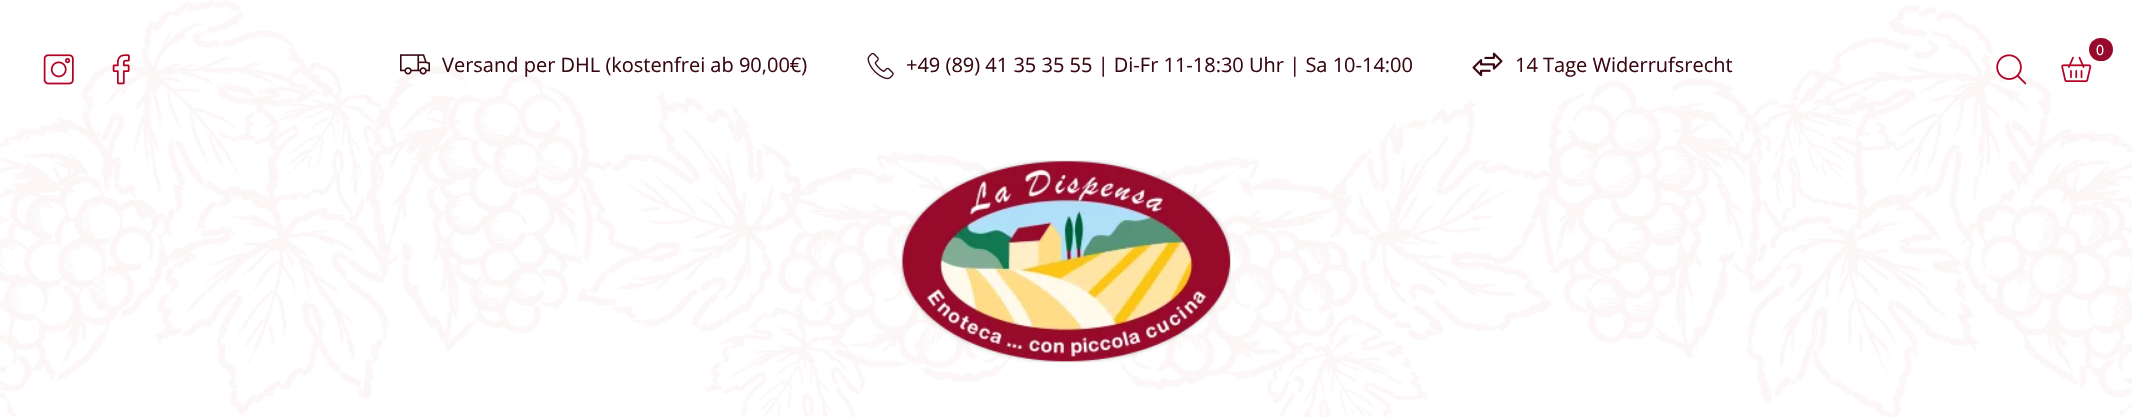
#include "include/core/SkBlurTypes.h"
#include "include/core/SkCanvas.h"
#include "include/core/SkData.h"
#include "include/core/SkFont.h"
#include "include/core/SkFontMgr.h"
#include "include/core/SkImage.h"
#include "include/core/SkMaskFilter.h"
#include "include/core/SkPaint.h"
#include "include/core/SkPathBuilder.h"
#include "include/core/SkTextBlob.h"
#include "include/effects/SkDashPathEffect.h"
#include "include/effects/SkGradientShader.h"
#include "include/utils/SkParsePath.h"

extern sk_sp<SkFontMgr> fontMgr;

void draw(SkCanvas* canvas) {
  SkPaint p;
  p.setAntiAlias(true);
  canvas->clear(SK_ColorWHITE);
  canvas->drawImageRect(SkImages::DeferredFromEncodedData(SkData::MakeFromFileName("images/1.png")), SkRect::MakeLTRB(0, 0, 2132, 417), SkSamplingOptions());
  canvas->drawImageRect(SkImages::DeferredFromEncodedData(SkData::MakeFromFileName("images/2.png")), SkRect::MakeLTRB(2061, 56, 2092, 82), SkSamplingOptions());
  p.setColor(SkColorSetRGB(152, 10, 43));
  canvas->drawRoundRect(SkRect::MakeLTRB(2089, 38, 2113, 61), 11.5f, 11.5f, p);
  canvas->drawImageRect(SkImages::DeferredFromEncodedData(SkData::MakeFromFileName("images/3.png")), SkRect::MakeLTRB(1996, 54, 2027, 85), SkSamplingOptions());
  canvas->drawImageRect(SkImages::DeferredFromEncodedData(SkData::MakeFromFileName("images/4.png")), SkRect::MakeLTRB(43, 54, 74, 85), SkSamplingOptions());
  canvas->drawImageRect(SkImages::DeferredFromEncodedData(SkData::MakeFromFileName("images/5.png")), SkRect::MakeLTRB(112, 54, 130, 85), SkSamplingOptions());
  canvas->drawImageRect(SkImages::DeferredFromEncodedData(SkData::MakeFromFileName("images/6.png")), SkRect::MakeLTRB(901, 160, 1231, 363), SkSamplingOptions());
  canvas->drawImageRect(SkImages::DeferredFromEncodedData(SkData::MakeFromFileName("images/7.png")), SkRect::MakeLTRB(400, 54, 430, 75), SkSamplingOptions());
  canvas->drawImageRect(SkImages::DeferredFromEncodedData(SkData::MakeFromFileName("images/8.png")), SkRect::MakeLTRB(867, 52, 894, 80), SkSamplingOptions());
  canvas->drawImageRect(SkImages::DeferredFromEncodedData(SkData::MakeFromFileName("images/9.png")), SkRect::MakeLTRB(1472, 52, 1503, 77), SkSamplingOptions());
  SkFont font1(fontMgr->matchFamilyStyle("Open Sans", SkFontStyle::Normal()), 14);
  font1.setSubpixel(true);
  p.setColor(SK_ColorWHITE);
  canvas->drawString("0", 2096, 55, font1, p);
  SkFont font2(fontMgr->matchFamilyStyle("Open Sans", SkFontStyle::Normal()), 20);
  font2.setSubpixel(true);
  p.setColor(SkColorSetRGB(57, 8, 19));
  canvas->drawString("Versand per DHL (kostenfrei ab 90,00€)", 442, 72, font2, p);
  canvas->drawString("+49 (89) 41 35 35 55 | Di-Fr 11-18:30 Uhr | Sa 10-14:00", 906, 72, font2, p);
  canvas->drawString("14 Tage Widerrufsrecht", 1515, 72, font2, p);
}
